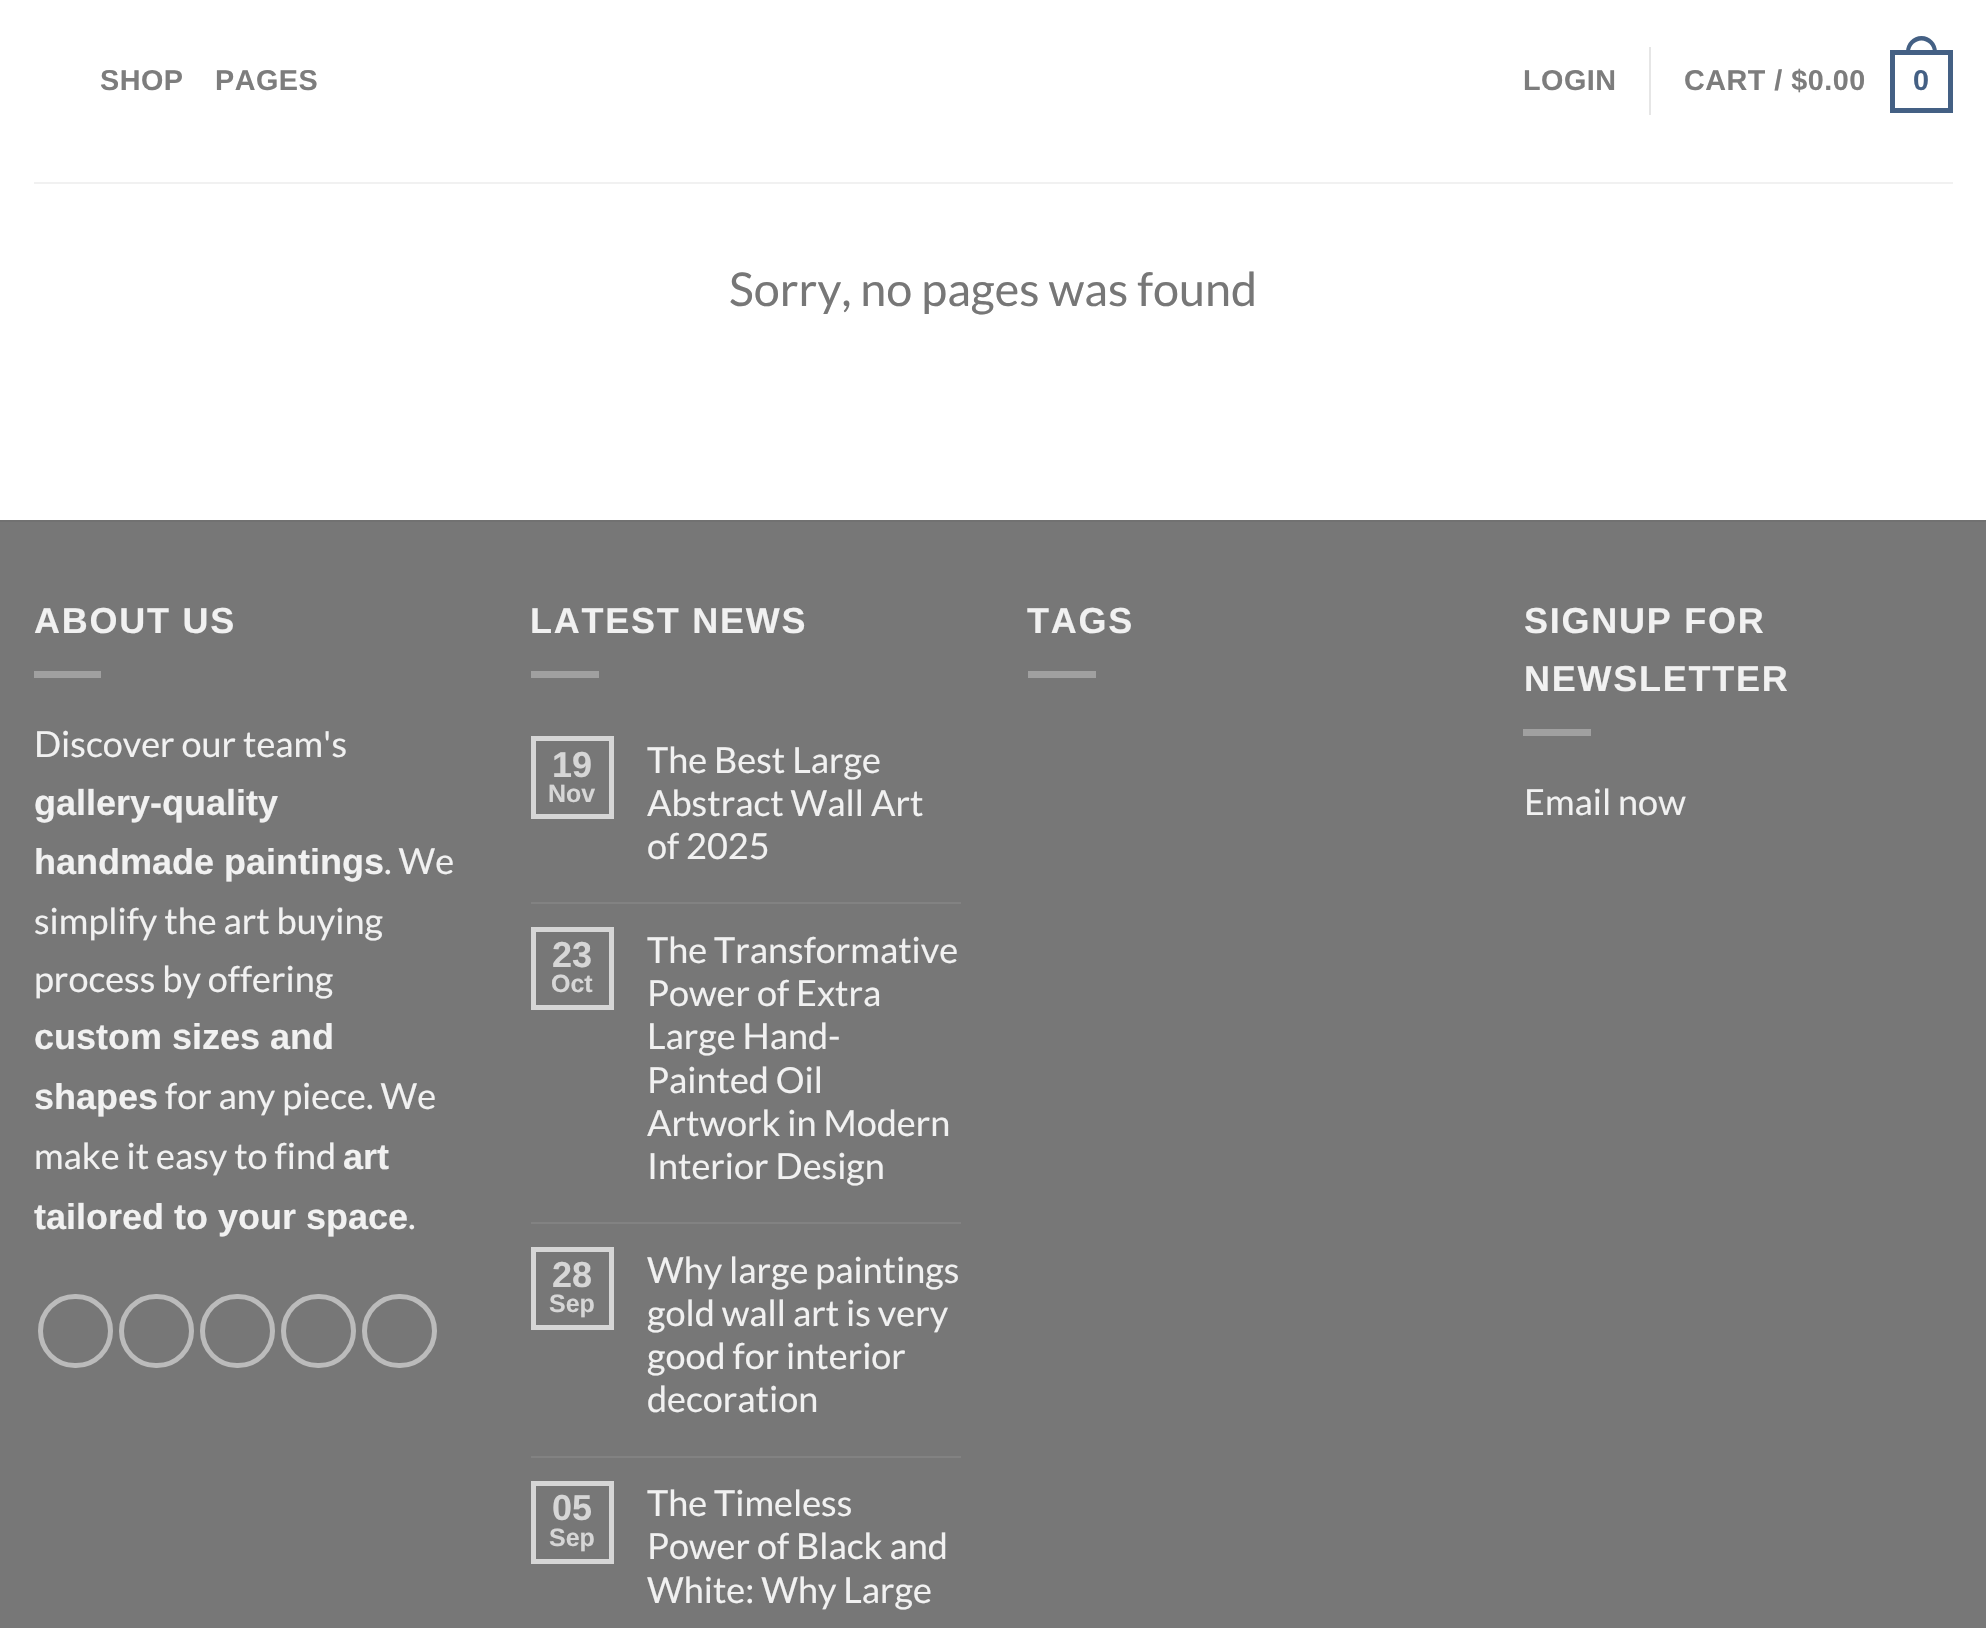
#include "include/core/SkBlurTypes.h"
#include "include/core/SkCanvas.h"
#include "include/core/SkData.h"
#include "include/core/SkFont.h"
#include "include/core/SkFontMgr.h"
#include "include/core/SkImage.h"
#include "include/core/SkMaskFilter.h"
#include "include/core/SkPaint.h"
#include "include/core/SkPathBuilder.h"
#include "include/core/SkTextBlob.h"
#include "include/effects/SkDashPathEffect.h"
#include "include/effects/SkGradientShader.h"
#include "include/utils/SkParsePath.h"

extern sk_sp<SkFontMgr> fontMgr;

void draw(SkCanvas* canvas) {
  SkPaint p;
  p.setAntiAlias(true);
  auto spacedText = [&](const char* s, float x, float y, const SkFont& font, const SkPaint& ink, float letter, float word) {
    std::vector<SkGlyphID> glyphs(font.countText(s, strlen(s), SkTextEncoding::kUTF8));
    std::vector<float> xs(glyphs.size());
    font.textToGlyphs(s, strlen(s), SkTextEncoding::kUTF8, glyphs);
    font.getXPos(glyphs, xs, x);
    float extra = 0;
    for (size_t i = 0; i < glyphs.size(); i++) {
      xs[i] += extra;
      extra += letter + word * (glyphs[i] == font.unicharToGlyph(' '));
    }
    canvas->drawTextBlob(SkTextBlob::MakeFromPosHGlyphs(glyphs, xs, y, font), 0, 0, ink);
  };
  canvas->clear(SK_ColorWHITE);
  p.setColor(SkColorSetRGB(230, 230, 230));
  canvas->drawRect(SkRect::MakeLTRB(1649, 47, 1651, 115), p);
  p.setStyle(SkPaint::kStroke_Style);
  p.setStrokeWidth(5);
  p.setColor(SkColorSetRGB(68, 96, 132));
  canvas->drawRect(SkRect::MakeLTRB(1892.5f, 52.5f, 1950.5f, 110.5f), p);
  p.setStyle(SkPaint::kFill_Style);
  canvas->drawPath(SkPathBuilder(SkPathFillType::kEvenOdd).moveTo(1921.5f, 36).cubicTo(1930, 36, 1937, 43, 1937, 52).lineTo(1937, 54).lineTo(1906, 54).lineTo(1906, 52).cubicTo(1906, 43, 1913, 36, 1921.5f, 36).close().moveTo(1921.5f, 40.5f).cubicTo(1927.5f, 40.5f, 1933, 45.5f, 1933, 52).lineTo(1933, 54).lineTo(1910, 54).lineTo(1910, 52).cubicTo(1910, 45.5f, 1915.5f, 40.5f, 1921.5f, 40.5f).close().detach(), p);
  p.setColor(SkColorSetRGB(241, 241, 241));
  canvas->drawRect(SkRect::MakeLTRB(34, 182, 1953, 184), p);
  p.setColor(SkColorSetRGB(119, 119, 119));
  canvas->drawRect(SkRect::MakeLTRB(0, 522, 1986, 1628), p);
  p.setColor(SkColorSetRGB(113, 113, 113));
  canvas->drawRect(SkRect::MakeLTRB(0, 520, 1986, 522), p);
  p.setColor(SkColorSetRGB(160, 160, 160));
  canvas->drawRect(SkRect::MakeLTRB(34, 671, 101, 678), p);
  p.setStyle(SkPaint::kStroke_Style);
  p.setColor(SkColorSetRGB(187, 187, 187));
  canvas->drawRoundRect(SkRect::MakeLTRB(40.5f, 1296.5f, 110.5f, 1365.5f), 34.5f, 34.5f, p);
  canvas->drawRoundRect(SkRect::MakeLTRB(121.5f, 1296.5f, 191.5f, 1365.5f), 34.5f, 34.5f, p);
  canvas->drawRoundRect(SkRect::MakeLTRB(202.5f, 1296.5f, 272.5f, 1365.5f), 34.5f, 34.5f, p);
  canvas->drawRoundRect(SkRect::MakeLTRB(283.5f, 1296.5f, 353.5f, 1365.5f), 34.5f, 34.5f, p);
  canvas->drawRoundRect(SkRect::MakeLTRB(364.5f, 1296.5f, 434.5f, 1365.5f), 34.5f, 34.5f, p);
  p.setStyle(SkPaint::kFill_Style);
  p.setColor(SkColorSetRGB(160, 160, 160));
  canvas->drawRect(SkRect::MakeLTRB(531, 671, 599, 678), p);
  p.setStyle(SkPaint::kStroke_Style);
  p.setColor(SkColorSetRGB(214, 214, 214));
  canvas->drawRect(SkRect::MakeLTRB(533.5f, 738.5f, 611.5f, 816.5f), p);
  p.setStyle(SkPaint::kFill_Style);
  p.setColor(SkColorSetRGB(130, 130, 130));
  canvas->drawRect(SkRect::MakeLTRB(531, 902, 961, 904), p);
  p.setStyle(SkPaint::kStroke_Style);
  p.setColor(SkColorSetRGB(214, 214, 214));
  canvas->drawRect(SkRect::MakeLTRB(533.5f, 929.5f, 611.5f, 1007.5f), p);
  p.setStyle(SkPaint::kFill_Style);
  p.setColor(SkColorSetRGB(130, 130, 130));
  canvas->drawRect(SkRect::MakeLTRB(531, 1222, 961, 1224), p);
  p.setStyle(SkPaint::kStroke_Style);
  p.setColor(SkColorSetRGB(214, 214, 214));
  canvas->drawRect(SkRect::MakeLTRB(533.5f, 1249.5f, 611.5f, 1327.5f), p);
  p.setStyle(SkPaint::kFill_Style);
  p.setColor(SkColorSetRGB(130, 130, 130));
  canvas->drawRect(SkRect::MakeLTRB(531, 1456, 961, 1458), p);
  p.setStyle(SkPaint::kStroke_Style);
  p.setColor(SkColorSetRGB(214, 214, 214));
  canvas->drawRect(SkRect::MakeLTRB(533.5f, 1483.5f, 611.5f, 1561.5f), p);
  p.setStyle(SkPaint::kFill_Style);
  p.setColor(SkColorSetRGB(160, 160, 160));
  canvas->drawRect(SkRect::MakeLTRB(1028, 671, 1096, 678), p);
  canvas->drawRect(SkRect::MakeLTRB(1523, 729, 1591, 736), p);
  SkFont font1(fontMgr->matchFamilyStyle("Liberation Sans", SkFontStyle::Bold()), 28.75f);
  font1.setSubpixel(true);
  p.setColor(SkColorSetRGB(125, 125, 125));
  spacedText("SHOP", 100, 90, font1, p, 0.5f, 0);
  spacedText("PAGES", 215, 90, font1, p, 0.5f, 0);
  spacedText("LOGIN", 1523, 90, font1, p, 0.5f, 0);
  spacedText("CART / $0.00", 1684, 90, font1, p, 0.5f, 0);
  p.setColor(SkColorSetRGB(68, 96, 132));
  spacedText("0", 1913, 90, font1, p, 0.5f, 0);
  SkFont font2(fontMgr->matchFamilyStyle("Lato", SkFontStyle::Normal()), 46.75f);
  font2.setSubpixel(true);
  p.setColor(SkColorSetRGB(119, 119, 119));
  canvas->drawString("Sorry, no pages was found", 729, 306, font2, p);
  SkFont font3(fontMgr->matchFamilyStyle("Liberation Sans", SkFontStyle::Bold()), 36);
  font3.setSubpixel(true);
  p.setColor(SkColorSetRGB(241, 241, 241));
  spacedText("ABOUT US", 34, 633, font3, p, 1.75f, 0);
  SkFont font4(fontMgr->matchFamilyStyle("Lato", SkFontStyle::Normal()), 36);
  font4.setSubpixel(true);
  canvas->drawString("Discover our team's", 34, 757, font4, p);
  canvas->drawString("gallery-quality", 34, 815, font3, p);
  canvas->drawString("handmade paintings", 34, 874, font3, p);
  canvas->drawString(". We", 384, 874, font4, p);
  canvas->drawString("simplify the art buying", 34, 934, font4, p);
  canvas->drawString("process by offering", 34, 992, font4, p);
  canvas->drawString("custom sizes and", 34, 1049, font3, p);
  canvas->drawString("shapes", 34, 1109, font3, p);
  canvas->drawString("for any piece. We", 165, 1109, font4, p);
  canvas->drawString("make it easy to find", 34, 1169, font4, p);
  canvas->drawString("art", 343, 1169, font3, p);
  canvas->drawString("tailored to your space", 34, 1229, font3, p);
  canvas->drawString(".", 408, 1229, font4, p);
  spacedText("LATEST NEWS", 530, 633, font3, p, 1.75f, 0);
  p.setColor(SkColorSetRGB(214, 214, 214));
  canvas->drawString("19", 552, 777, font3, p);
  SkFont font5(fontMgr->matchFamilyStyle("Liberation Sans", SkFontStyle::Bold()), 25);
  font5.setSubpixel(true);
  canvas->drawString("Nov", 548, 802, font5, p);
  p.setColor(SkColorSetRGB(241, 241, 241));
  canvas->drawString("The Best Large", 647, 773, font4, p);
  canvas->drawString("Abstract Wall Art", 647, 816, font4, p);
  canvas->drawString("of 2025", 647, 859, font4, p);
  p.setColor(SkColorSetRGB(214, 214, 214));
  canvas->drawString("23", 552, 967, font3, p);
  canvas->drawString("Oct", 551, 992, font5, p);
  p.setColor(SkColorSetRGB(241, 241, 241));
  canvas->drawString("The Transformative", 647, 963, font4, p);
  canvas->drawString("Power of Extra", 647, 1006, font4, p);
  canvas->drawString("Large Hand-", 647, 1049, font4, p);
  canvas->drawString("Painted Oil", 647, 1093, font4, p);
  canvas->drawString("Artwork in Modern", 647, 1136, font4, p);
  canvas->drawString("Interior Design", 647, 1179, font4, p);
  p.setColor(SkColorSetRGB(214, 214, 214));
  canvas->drawString("28", 552, 1287, font3, p);
  canvas->drawString("Sep", 549, 1312, font5, p);
  p.setColor(SkColorSetRGB(241, 241, 241));
  canvas->drawString("Why large paintings", 647, 1283, font4, p);
  canvas->drawString("gold wall art is very", 647, 1326, font4, p);
  canvas->drawString("good for interior", 647, 1369, font4, p);
  canvas->drawString("decoration", 647, 1412, font4, p);
  p.setColor(SkColorSetRGB(214, 214, 214));
  canvas->drawString("05", 552, 1520, font3, p);
  canvas->drawString("Sep", 549, 1546, font5, p);
  p.setColor(SkColorSetRGB(241, 241, 241));
  canvas->drawString("The Timeless", 647, 1516, font4, p);
  canvas->drawString("Power of Black and", 647, 1559, font4, p);
  canvas->drawString("White: Why Large", 647, 1603, font4, p);
  spacedText("TAGS", 1027, 633, font3, p, 1.75f, 0);
  spacedText("SIGNUP FOR", 1524, 633, font3, p, 1.75f, 0);
  spacedText("NEWSLETTER", 1524, 691, font3, p, 1.75f, 0);
  canvas->drawString("Email now", 1524, 815, font4, p);
}
